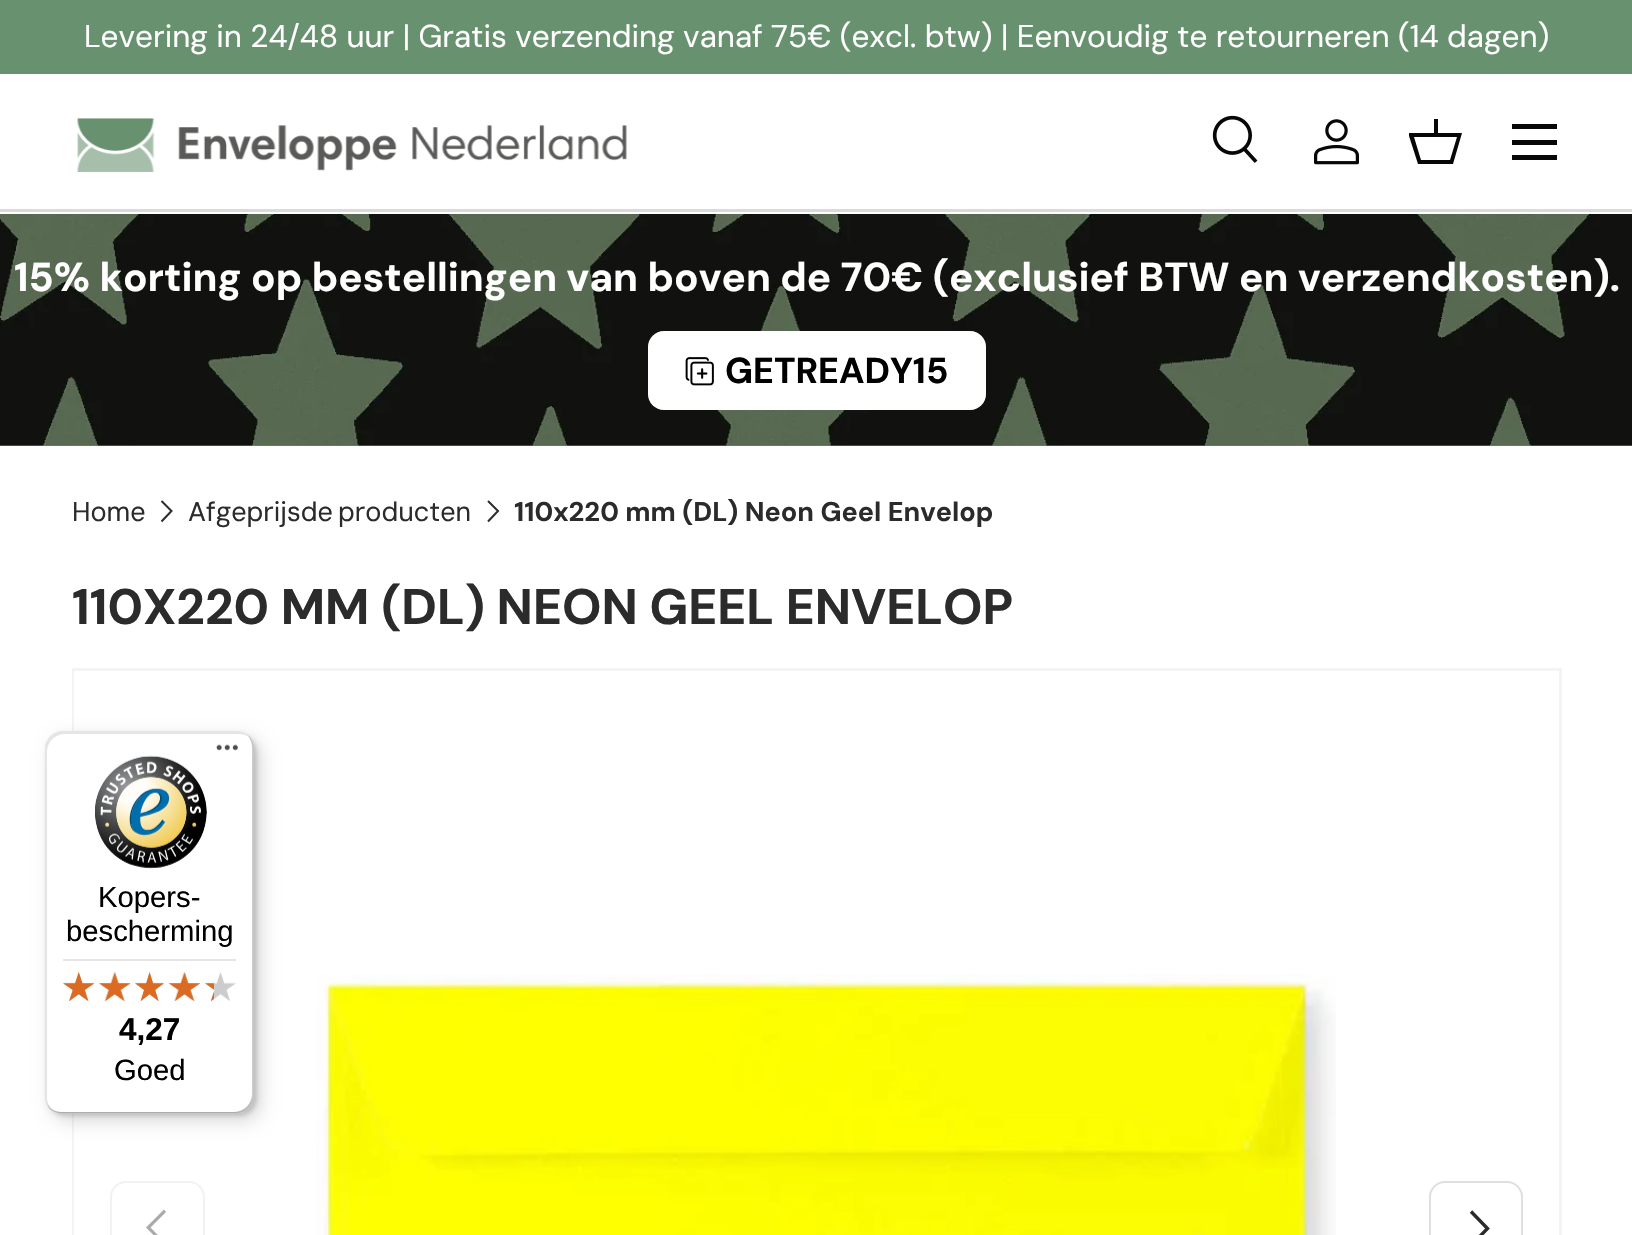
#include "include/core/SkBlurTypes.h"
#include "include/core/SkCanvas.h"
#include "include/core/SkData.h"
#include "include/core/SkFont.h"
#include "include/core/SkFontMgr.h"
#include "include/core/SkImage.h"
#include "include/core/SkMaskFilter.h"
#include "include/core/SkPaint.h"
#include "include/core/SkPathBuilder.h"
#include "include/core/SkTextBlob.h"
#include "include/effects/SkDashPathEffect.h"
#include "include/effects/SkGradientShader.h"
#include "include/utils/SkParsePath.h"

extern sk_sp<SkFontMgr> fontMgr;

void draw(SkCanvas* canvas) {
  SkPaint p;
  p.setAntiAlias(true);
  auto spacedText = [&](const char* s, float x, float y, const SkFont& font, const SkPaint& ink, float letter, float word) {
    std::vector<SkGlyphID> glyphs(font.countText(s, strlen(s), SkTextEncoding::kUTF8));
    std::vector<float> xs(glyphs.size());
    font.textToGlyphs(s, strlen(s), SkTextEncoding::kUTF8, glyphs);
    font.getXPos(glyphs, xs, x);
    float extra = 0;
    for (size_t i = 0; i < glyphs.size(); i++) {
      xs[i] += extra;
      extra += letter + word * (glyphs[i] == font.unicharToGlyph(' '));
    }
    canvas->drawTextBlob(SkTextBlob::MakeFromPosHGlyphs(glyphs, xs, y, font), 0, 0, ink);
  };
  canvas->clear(SK_ColorWHITE);
  p.setColor(SkColorSetRGB(104, 145, 112));
  canvas->drawRect(SkRect::MakeLTRB(0, 0, 1632, 74), p);
  p.setColor(SkColorSetRGB(218, 218, 218));
  canvas->drawPath(SkPathBuilder().moveTo(0, 209).lineTo(0, 212).lineTo(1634, 212).lineTo(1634, 77).lineTo(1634, 209).close().detach(), p);
  canvas->drawImageRect(SkImages::DeferredFromEncodedData(SkData::MakeFromFileName("images/1.png")), SkRect::MakeLTRB(77, 118, 627, 172), SkSamplingOptions());
  canvas->drawImageRect(SkImages::DeferredFromEncodedData(SkData::MakeFromFileName("images/2.png")), SkRect::MakeLTRB(1212, 115, 1258, 163), SkSamplingOptions());
  canvas->drawImageRect(SkImages::DeferredFromEncodedData(SkData::MakeFromFileName("images/3.png")), SkRect::MakeLTRB(1314, 119, 1359, 165), SkSamplingOptions());
  canvas->save();
  canvas->clipRect(SkRect::MakeLTRB(1409, 115, 1463, 169));
  p.setColor(SkColorSetRGB(7, 7, 7));
  canvas->drawPath(SkPathBuilder().moveTo(1434, 133).lineTo(1434, 119).lineTo(1438, 119).lineTo(1438, 133).lineTo(1462, 133).lineTo(1453, 164).lineTo(1418, 164).lineTo(1408, 133).close().moveTo(1414, 137).lineTo(1421, 160).lineTo(1450, 160).lineTo(1457, 137).close().detach(), p);
  canvas->restore();
  canvas->drawRect(SkRect::MakeLTRB(1512, 124, 1557, 129), p);
  canvas->drawRect(SkRect::MakeLTRB(1512, 155, 1557, 160), p);
  canvas->drawRect(SkRect::MakeLTRB(1512, 140, 1557, 145), p);
  p.setColor(SkColorSetRGB(104, 145, 112));
  canvas->drawRect(SkRect::MakeLTRB(0, 445, 1632, 446), p);
  canvas->drawImageRect(SkImages::DeferredFromEncodedData(SkData::MakeFromFileName("images/4.png")), SkRect::MakeLTRB(0, 214, 1632, 446), SkSamplingOptions());
  p.setColor(SK_ColorWHITE);
  canvas->drawRoundRect(SkRect::MakeLTRB(648, 331, 986, 410), 16, 16, p);
  p.setStyle(SkPaint::kStroke_Style);
  p.setStrokeWidth(5);
  p.setColor(SkColorSetARGB(51, 255, 255, 255));
  canvas->drawRoundRect(SkRect::MakeLTRB(650.5f, 333.5f, 983.5f, 407.5f), 13.5f, 13.5f, p);
  canvas->drawImageRect(SkImages::DeferredFromEncodedData(SkData::MakeFromFileName("images/5.png")), SkRect::MakeLTRB(685, 357, 714, 386), SkSamplingOptions());
  p.setStrokeWidth(2);
  p.setColor(SkColorSetRGB(42, 43, 42));
  canvas->drawPath(SkPathBuilder().moveTo(161.5f, 501).lineTo(171.5f, 511).lineTo(161.5f, 521.5f).detach(), p);
  canvas->drawPath(SkPathBuilder().moveTo(488, 501).lineTo(498, 511).lineTo(488, 521.5f).detach(), p);
  p.setStyle(SkPaint::kFill_Style);
  p.setColor(SkColorSetRGB(244, 244, 244));
  canvas->drawRect(SkRect::MakeLTRB(72, 668, 1562, 1235), p);
  p.setColor(SK_ColorWHITE);
  canvas->drawRect(SkRect::MakeLTRB(74, 671, 1559, 1235), p);
  canvas->drawImageRect(SkImages::DeferredFromEncodedData(SkData::MakeFromFileName("images/6.png")), SkRect::MakeLTRB(316, 973, 1336, 1235), SkSamplingOptions());
  p.setStyle(SkPaint::kStroke_Style);
  p.setColor(SkColorSetRGB(242, 242, 242));
  canvas->drawRoundRect(SkRect::MakeLTRB(111, 1182, 204, 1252), 15, 15, p);
  p.setStyle(SkPaint::kFill_Style);
  p.setColor(SkColorSetRGB(170, 170, 170));
  canvas->drawPath(SkPathBuilder().moveTo(146, 1227.5f).lineTo(164, 1209.5f).lineTo(166, 1212).lineTo(150.5f, 1227.5f).lineTo(166, 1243.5f).lineTo(164, 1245.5f).close().detach(), p);
  p.setStyle(SkPaint::kStroke_Style);
  p.setColor(SkColorSetRGB(223, 223, 223));
  canvas->drawRoundRect(SkRect::MakeLTRB(1430, 1182, 1522, 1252), 15, 15, p);
  p.setStrokeWidth(3.4f);
  p.setColor(SkColorSetRGB(42, 43, 42));
  canvas->drawPath(SkPathBuilder().moveTo(1471, 1211.5f).lineTo(1487.5f, 1228.5f).lineTo(1471, 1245.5f).detach(), p);
  p.setStyle(SkPaint::kFill_Style);
  p.setColor(SkColorSetARGB(38, 0, 0, 0));
  p.setMaskFilter(SkMaskFilter::MakeBlur(kNormal_SkBlurStyle, 9));
  canvas->drawRoundRect(SkRect::MakeLTRB(52, 738, 261, 1121), 18, 18, p);
  p.setMaskFilter(nullptr);
  p.setMaskFilter(SkMaskFilter::MakeBlur(kNormal_SkBlurStyle, 2));
  canvas->drawRoundRect(SkRect::MakeLTRB(47, 734, 257, 1116), 18, 18, p);
  p.setMaskFilter(nullptr);
  p.setColor(SK_ColorWHITE);
  canvas->drawRoundRect(SkRect::MakeLTRB(45, 731, 254, 1114), 18, 18, p);
  p.setColor(SkColorSetARGB(26, 0, 0, 0));
  canvas->drawPath(SkPathBuilder().moveTo(65, 734).lineTo(238, 734).cubicTo(244, 734, 249, 736, 252, 740).cubicTo(249, 735, 243, 731, 236, 731).lineTo(63, 731).cubicTo(53, 731, 45, 739, 45, 749).lineTo(45, 1096).cubicTo(45, 1101, 47, 1106, 51, 1110).cubicTo(49, 1106, 47, 1102, 47, 1098).lineTo(47, 752).cubicTo(47, 742, 55, 734, 65, 734).close().detach(), p);
  p.setColor(SkColorSetARGB(51, 0, 0, 0));
  canvas->drawPath(SkPathBuilder().moveTo(48, 1107).cubicTo(52, 1111, 57, 1114, 63, 1114).lineTo(236, 1114).cubicTo(246, 1114, 254, 1106, 254, 1096).lineTo(254, 749).cubicTo(254, 744, 252, 739, 248, 735).cubicTo(250, 739, 252, 743, 252, 747).lineTo(252, 1094).cubicTo(252, 1103, 244, 1112, 234, 1112).lineTo(61, 1112).cubicTo(56, 1112, 52, 1110, 48, 1107).close().detach(), p);
  p.setColor(SkColorSetARGB(51, 50, 50, 50));
  canvas->drawPath(SkPathBuilder().moveTo(47, 1103).cubicTo(49, 1110, 56, 1114, 63, 1114).lineTo(236, 1114).cubicTo(246, 1114, 254, 1106, 254, 1096).lineTo(254, 749).cubicTo(254, 744, 252, 739, 249, 736).cubicTo(251, 739, 253, 743, 253, 748).lineTo(253, 1094).cubicTo(253, 1104, 245, 1112, 235, 1112).lineTo(62, 1112).cubicTo(55, 1112, 50, 1108, 47, 1103).close().detach(), p);
  p.setColor(SkColorSetARGB(77, 255, 255, 255));
  canvas->drawPath(SkPathBuilder().moveTo(50, 1109).cubicTo(53, 1112, 58, 1114, 63, 1114).lineTo(236, 1114).cubicTo(246, 1114, 254, 1106, 254, 1096).lineTo(254, 749).cubicTo(254, 744, 252, 739, 249, 736).cubicTo(251, 739, 253, 743, 253, 748).lineTo(253, 1095).cubicTo(253, 1105, 245, 1113, 235, 1113).lineTo(62, 1113).cubicTo(57, 1113, 53, 1111, 50, 1109).close().detach(), p);
  canvas->drawImageRect(SkImages::DeferredFromEncodedData(SkData::MakeFromFileName("images/7.png")), SkRect::MakeLTRB(216, 744, 238, 751), SkSamplingOptions());
  canvas->drawImageRect(SkImages::DeferredFromEncodedData(SkData::MakeFromFileName("images/8.png")), SkRect::MakeLTRB(95, 755, 207, 869), SkSamplingOptions());
  p.setColor(SkColorSetRGB(229, 229, 229));
  canvas->drawRect(SkRect::MakeLTRB(63, 959, 236, 961), p);
  canvas->drawImageRect(SkImages::DeferredFromEncodedData(SkData::MakeFromFileName("images/9.png")), SkRect::MakeLTRB(63, 972, 94, 1001), SkSamplingOptions());
  canvas->drawImageRect(SkImages::DeferredFromEncodedData(SkData::MakeFromFileName("images/10.png")), SkRect::MakeLTRB(99, 972, 130, 1001), SkSamplingOptions());
  canvas->drawImageRect(SkImages::DeferredFromEncodedData(SkData::MakeFromFileName("images/11.png")), SkRect::MakeLTRB(135, 972, 164, 1001), SkSamplingOptions());
  canvas->drawImageRect(SkImages::DeferredFromEncodedData(SkData::MakeFromFileName("images/12.png")), SkRect::MakeLTRB(168, 972, 200, 1001), SkSamplingOptions());
  canvas->drawImageRect(SkImages::DeferredFromEncodedData(SkData::MakeFromFileName("images/13.png")), SkRect::MakeLTRB(205, 972, 236, 1001), SkSamplingOptions());
  canvas->drawImageRect(SkImages::DeferredFromEncodedData(SkData::MakeFromFileName("images/14.png")), SkRect::MakeLTRB(63, 972, 94, 1001), SkSamplingOptions());
  canvas->drawImageRect(SkImages::DeferredFromEncodedData(SkData::MakeFromFileName("images/15.png")), SkRect::MakeLTRB(98, 972, 131, 1001), SkSamplingOptions());
  canvas->drawImageRect(SkImages::DeferredFromEncodedData(SkData::MakeFromFileName("images/16.png")), SkRect::MakeLTRB(135, 972, 164, 1001), SkSamplingOptions());
  canvas->drawImageRect(SkImages::DeferredFromEncodedData(SkData::MakeFromFileName("images/17.png")), SkRect::MakeLTRB(168, 972, 200, 1001), SkSamplingOptions());
  canvas->drawImageRect(SkImages::DeferredFromEncodedData(SkData::MakeFromFileName("images/18.png")), SkRect::MakeLTRB(205, 983, 214, 1001), SkSamplingOptions());
  SkFont font1(fontMgr->matchFamilyStyle("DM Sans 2", SkFontStyle::Normal()), 31.5f);
  font1.setSubpixel(true);
  p.setColor(SK_ColorWHITE);
  canvas->drawString("Levering in 24/48 uur | Gratis verzending vanaf 75€ (excl. btw) | Eenvoudig te retourneren (14 dagen)", 84, 47, font1, p);
  SkFont font2(fontMgr->matchFamilyStyle("DM Sans", SkFontStyle::Bold()), 40.5f);
  font2.setSubpixel(true);
  canvas->drawString("15% korting op bestellingen van boven de 70€ (exclusief BTW en verzendkosten).", 14, 291, font2, p);
  SkFont font3(fontMgr->matchFamilyStyle("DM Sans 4", SkFontStyle::Bold()), 36);
  font3.setSubpixel(true);
  p.setColor(SK_ColorBLACK);
  canvas->drawString("GETREADY15", 725, 383, font3, p);
  SkFont font4(fontMgr->matchFamilyStyle("DM Sans", SkFontStyle::Normal()), 27);
  font4.setSubpixel(true);
  p.setColor(SkColorSetRGB(42, 43, 42));
  canvas->drawString("Home", 72, 521, font4, p);
  spacedText("Afgeprijsde producten", 188, 521, font4, p, 0, -2);
  SkFont font5(fontMgr->matchFamilyStyle("DM Sans 2", SkFontStyle::Bold()), 27);
  font5.setSubpixel(true);
  canvas->drawString("110x220 mm (DL) Neon Geel Envelop", 514, 521, font5, p);
  SkFont font6(fontMgr->matchFamilyStyle("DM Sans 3", SkFontStyle::Bold()), 50);
  font6.setSubpixel(true);
  canvas->drawString("110X220 MM (DL) NEON GEEL ENVELOP", 72, 624, font6, p);
  SkFont font7(fontMgr->matchFamilyStyle("Liberation Sans", SkFontStyle::Normal()), 29.25f);
  font7.setSubpixel(true);
  p.setColor(SK_ColorBLACK);
  canvas->drawString("Kopers-", 98, 907, font7, p);
  canvas->drawString("bescherming", 66, 941, font7, p);
  SkFont font8(fontMgr->matchFamilyStyle("Liberation Sans", SkFontStyle::Bold()), 31.5f);
  font8.setSubpixel(true);
  canvas->drawString("4,27", 119, 1040, font8, p);
  canvas->drawString("Goed", 114, 1080, font7, p);
}
